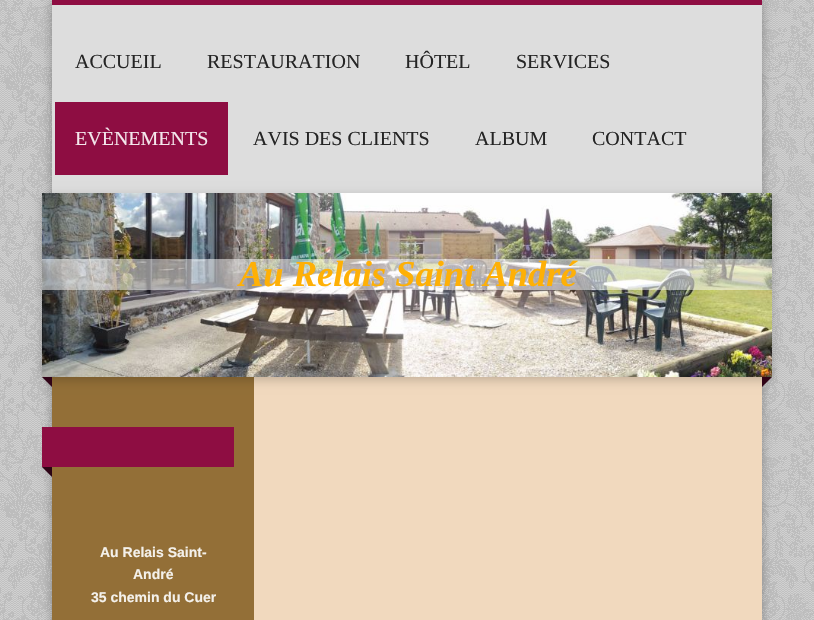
#include "include/core/SkBlurTypes.h"
#include "include/core/SkCanvas.h"
#include "include/core/SkData.h"
#include "include/core/SkFont.h"
#include "include/core/SkFontMgr.h"
#include "include/core/SkImage.h"
#include "include/core/SkMaskFilter.h"
#include "include/core/SkPaint.h"
#include "include/core/SkPathBuilder.h"
#include "include/core/SkTextBlob.h"
#include "include/effects/SkDashPathEffect.h"
#include "include/effects/SkGradientShader.h"
#include "include/utils/SkParsePath.h"

extern sk_sp<SkFontMgr> fontMgr;

void draw(SkCanvas* canvas) {
  SkPaint p;
  p.setAntiAlias(true);
  canvas->clear(SK_ColorWHITE);
  canvas->drawImageRect(SkImages::DeferredFromEncodedData(SkData::MakeFromFileName("images/1.png")), SkRect::MakeLTRB(0, 0, 814, 620), SkSamplingOptions());
  p.setColor(SkColorSetRGB(49, 4, 23));
  canvas->drawPath(SkPathBuilder().moveTo(52, 457).lineTo(52, 477).lineTo(42, 467).close().detach(), p);
  p.setColor(SkColorSetARGB(77, 0, 0, 0));
  p.setMaskFilter(SkMaskFilter::MakeBlur(kNormal_SkBlurStyle, 5));
  canvas->drawRect(SkRect::MakeLTRB(52, 0, 762, 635), p);
  p.setMaskFilter(nullptr);
  p.setColor(SkColorSetRGB(221, 221, 221));
  canvas->drawRect(SkRect::MakeLTRB(52, 5, 762, 193), p);
  p.setColor(SkColorSetRGB(142, 13, 66));
  canvas->drawRect(SkRect::MakeLTRB(52, 0, 762, 5), p);
  canvas->drawRect(SkRect::MakeLTRB(55, 102, 228, 175), p);
  p.setColor(SkColorSetRGB(241, 217, 190));
  canvas->drawRect(SkRect::MakeLTRB(254, 377, 762, 620), p);
  p.setColor(SkColorSetRGB(147, 111, 55));
  canvas->drawRect(SkRect::MakeLTRB(52, 377, 254, 620), p);
  p.setColor(SkColorSetARGB(51, 0, 0, 0));
  p.setMaskFilter(SkMaskFilter::MakeBlur(kNormal_SkBlurStyle, 5));
  canvas->drawRect(SkRect::MakeLTRB(42, 196, 772, 380), p);
  p.setMaskFilter(nullptr);
  p.setColor(SkColorSetRGB(49, 4, 23));
  canvas->drawPath(SkPathBuilder().moveTo(52, 367).lineTo(52, 387).lineTo(42, 377).close().detach(), p);
  canvas->drawPath(SkPathBuilder().moveTo(762, 387).lineTo(762, 367).lineTo(772, 377).close().detach(), p);
  canvas->drawImageRect(SkImages::DeferredFromEncodedData(SkData::MakeFromFileName("images/2.png")), SkRect::MakeLTRB(42, 193, 772, 377), SkSamplingOptions());
  p.setColor(SkColorSetARGB(128, 255, 255, 255));
  canvas->drawRect(SkRect::MakeLTRB(42, 259, 772, 290), p);
  p.setColor(SkColorSetRGB(142, 13, 66));
  canvas->drawRect(SkRect::MakeLTRB(42, 427, 234, 467), p);
  SkFont font1(fontMgr->matchFamilyStyle("Liberation Serif", SkFontStyle::Normal()), 20);
  font1.setSubpixel(true);
  p.setColor(SkColorSetRGB(37, 37, 37));
  canvas->drawString("ACCUEIL", 75, 68, font1, p);
  canvas->drawString("RESTAURATION", 207, 68, font1, p);
  canvas->drawString("HÔTEL", 405, 68, font1, p);
  canvas->drawString("SERVICES", 516, 68, font1, p);
  p.setColor(SkColorSetRGB(244, 231, 236));
  canvas->drawString("EVÈNEMENTS", 75, 145, font1, p);
  p.setColor(SkColorSetRGB(37, 37, 37));
  canvas->drawString("AVIS DES CLIENTS", 253, 145, font1, p);
  canvas->drawString("ALBUM", 475, 145, font1, p);
  canvas->drawString("CONTACT", 592, 145, font1, p);
  SkFont font2(fontMgr->matchFamilyStyle("Liberation Serif", SkFontStyle::BoldItalic()), 36.5f);
  font2.setSubpixel(true);
  p.setColor(SkColorSetRGB(254, 176, 6));
  canvas->drawString("Au Relais Saint André", 239, 286, font2, p);
  SkFont font3(fontMgr->matchFamilyStyle("Liberation Sans", SkFontStyle::Bold()), 14);
  font3.setSubpixel(true);
  p.setColor(SkColorSetRGB(244, 241, 235));
  canvas->drawString("Au Relais Saint-", 100, 557, font3, p);
  canvas->drawString("André", 133, 579, font3, p);
  canvas->drawString("35 chemin du Cuer", 91, 602, font3, p);
}
